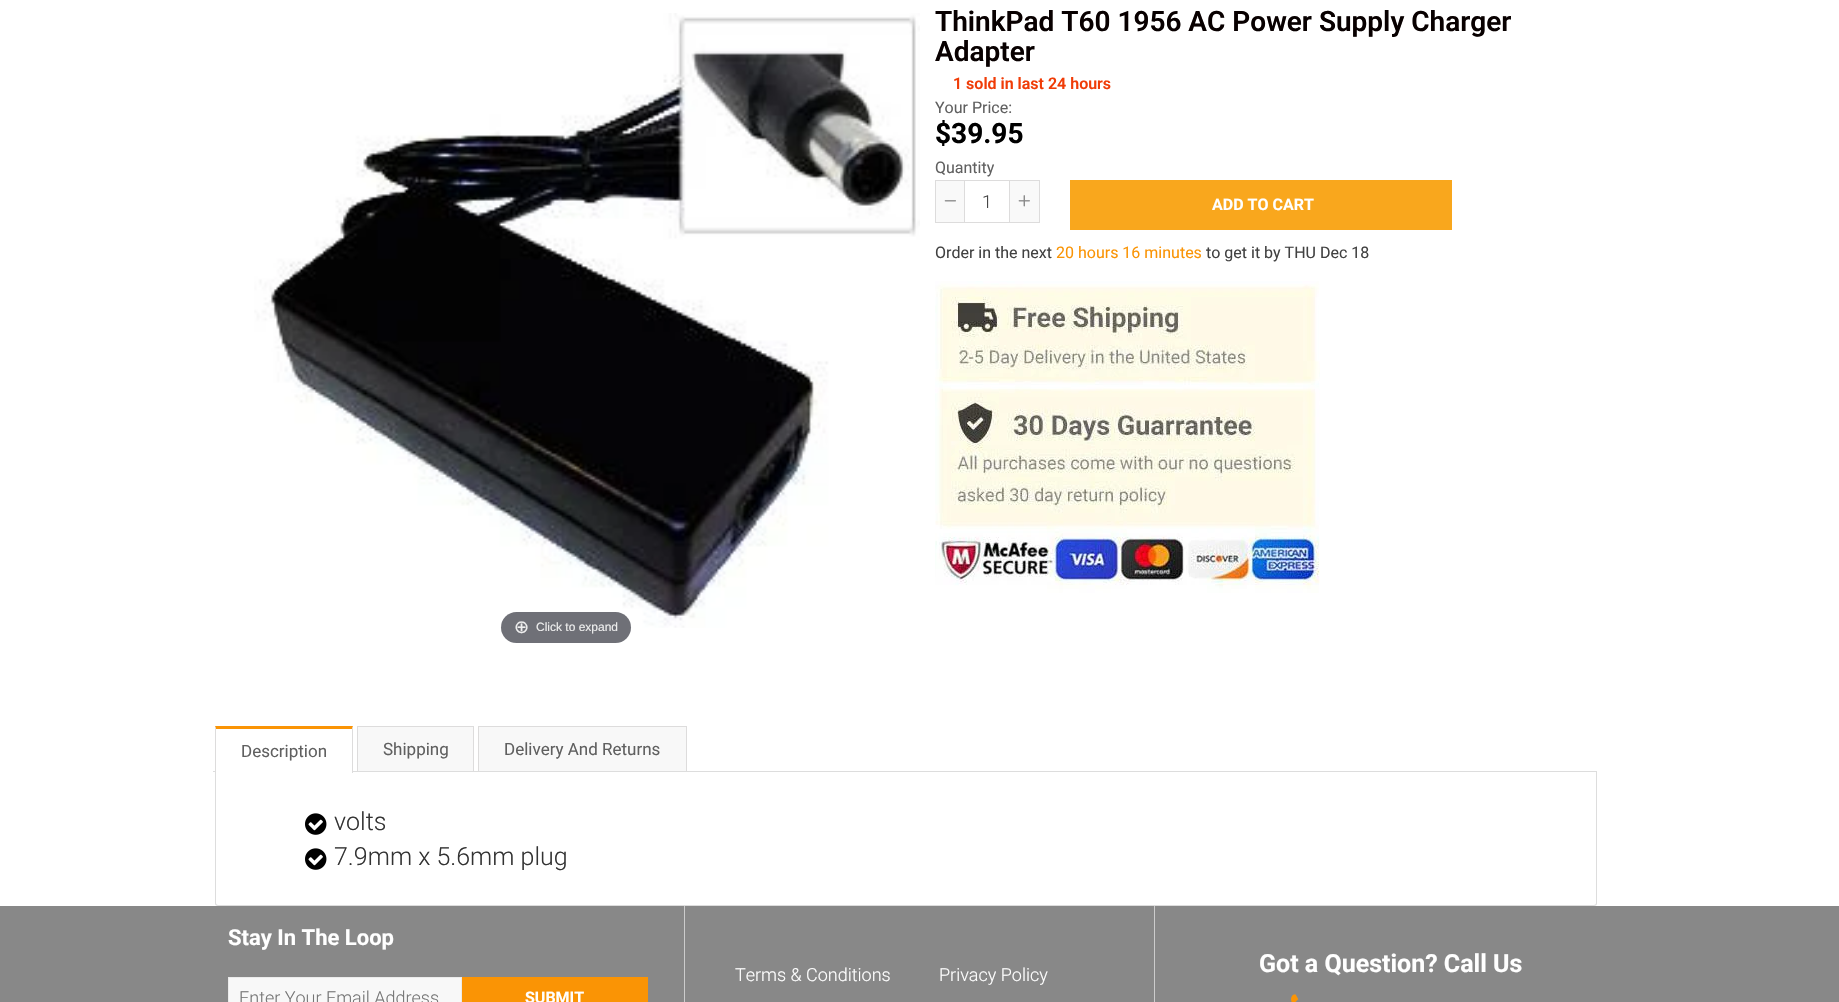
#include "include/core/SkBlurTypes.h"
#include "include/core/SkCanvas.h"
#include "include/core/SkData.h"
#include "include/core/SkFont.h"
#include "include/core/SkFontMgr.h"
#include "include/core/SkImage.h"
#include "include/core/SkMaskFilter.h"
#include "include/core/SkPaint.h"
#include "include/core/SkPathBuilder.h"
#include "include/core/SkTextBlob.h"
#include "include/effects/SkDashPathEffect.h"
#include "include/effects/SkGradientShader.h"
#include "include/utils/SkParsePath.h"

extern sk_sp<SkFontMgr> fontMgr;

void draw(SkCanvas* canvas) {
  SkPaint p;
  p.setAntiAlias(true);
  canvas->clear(SK_ColorWHITE);
  p.setStyle(SkPaint::kStroke_Style);
  p.setStrokeWidth(1);
  p.setColor(SkColorSetRGB(221, 220, 220));
  canvas->drawRect(SkRect::MakeLTRB(935.5f, 180.5f, 1039.5f, 222.5f), p);
  p.setStyle(SkPaint::kFill_Style);
  p.setColor(SkColorSetRGB(249, 249, 249));
  canvas->drawRect(SkRect::MakeLTRB(936, 181, 964, 222), p);
  p.setColor(SkColorSetRGB(221, 220, 220));
  canvas->drawRect(SkRect::MakeLTRB(964, 181, 965, 222), p);
  canvas->drawImageRect(SkImages::DeferredFromEncodedData(SkData::MakeFromFileName("images/1.png")), SkRect::MakeLTRB(944, 200, 956, 202), SkSamplingOptions());
  p.setColor(SkColorSetRGB(249, 249, 249));
  canvas->drawRect(SkRect::MakeLTRB(1010, 181, 1039, 222), p);
  p.setColor(SkColorSetRGB(221, 220, 220));
  canvas->drawRect(SkRect::MakeLTRB(1009, 181, 1010, 222), p);
  canvas->drawImageRect(SkImages::DeferredFromEncodedData(SkData::MakeFromFileName("images/2.png")), SkRect::MakeLTRB(1018, 195, 1030, 207), SkSamplingOptions());
  p.setColor(SkColorSetRGB(249, 167, 29));
  canvas->drawRect(SkRect::MakeLTRB(1070, 180, 1452, 230), p);
  canvas->drawImageRect(SkImages::DeferredFromEncodedData(SkData::MakeFromFileName("images/3.png")), SkRect::MakeLTRB(935, 281, 1320, 593), SkSamplingOptions());
  canvas->drawImageRect(SkImages::DeferredFromEncodedData(SkData::MakeFromFileName("images/4.png")), SkRect::MakeLTRB(254, 13, 920, 628), SkSamplingOptions());
  p.setColor(SkColorSetRGB(111, 112, 119));
  canvas->drawRoundRect(SkRect::MakeLTRB(501, 612, 631, 643), 15.5f, 15.5f, p);
  p.setColor(SkColorSetRGB(221, 221, 221));
  canvas->drawRect(SkRect::MakeLTRB(213, 771, 1597, 772), p);
  canvas->drawPath(SkPathBuilder(SkPathFillType::kEvenOdd).moveTo(215, 772).lineTo(1597, 772).lineTo(1597, 903).cubicTo(1597, 905, 1596, 906, 1594, 906).lineTo(218, 906).cubicTo(216, 906, 215, 905, 215, 903).close().moveTo(216, 772).lineTo(1596, 772).lineTo(1596, 903).cubicTo(1596, 904, 1595, 905, 1594, 905).lineTo(218, 905).cubicTo(217, 905, 216, 904, 216, 903).close().detach(), p);
  p.setColor(SK_ColorWHITE);
  canvas->drawRect(SkRect::MakeLTRB(215, 771, 353, 773), p);
  p.setColor(SkColorSetRGB(250, 148, 5));
  canvas->drawPath(SkPathBuilder().moveTo(215, 726).lineTo(353, 726).lineTo(352, 729).lineTo(216, 729).close().detach(), p);
  p.setColor(SkColorSetRGB(221, 220, 220));
  canvas->drawPath(SkPathBuilder().moveTo(353, 726).lineTo(353, 773).lineTo(352, 773).lineTo(352, 729).close().detach(), p);
  canvas->drawPath(SkPathBuilder().moveTo(215, 773).lineTo(215, 726).lineTo(216, 729).lineTo(216, 773).close().detach(), p);
  p.setColor(SkColorSetRGB(248, 248, 248));
  canvas->drawRect(SkRect::MakeLTRB(358, 727, 473, 771), p);
  p.setColor(SkColorSetRGB(221, 220, 220));
  canvas->drawRect(SkRect::MakeLTRB(357, 726, 474, 727), p);
  canvas->drawRect(SkRect::MakeLTRB(473, 726, 474, 771), p);
  canvas->drawRect(SkRect::MakeLTRB(357, 726, 358, 771), p);
  p.setColor(SkColorSetRGB(248, 248, 248));
  canvas->drawRect(SkRect::MakeLTRB(479, 727, 686, 771), p);
  p.setColor(SkColorSetRGB(221, 220, 220));
  canvas->drawRect(SkRect::MakeLTRB(478, 726, 687, 727), p);
  canvas->drawRect(SkRect::MakeLTRB(686, 726, 687, 771), p);
  canvas->drawRect(SkRect::MakeLTRB(478, 726, 479, 771), p);
  canvas->drawImageRect(SkImages::DeferredFromEncodedData(SkData::MakeFromFileName("images/5.png")), SkRect::MakeLTRB(305, 813, 327, 835), SkSamplingOptions());
  canvas->drawImageRect(SkImages::DeferredFromEncodedData(SkData::MakeFromFileName("images/5.png")), SkRect::MakeLTRB(305, 848, 327, 870), SkSamplingOptions());
  p.setColor(SkColorSetRGB(136, 136, 136));
  canvas->drawRect(SkRect::MakeLTRB(0, 906, 1839, 1002), p);
  p.setColor(SkColorSetRGB(248, 248, 248));
  canvas->drawRect(SkRect::MakeLTRB(228.5f, 977.5f, 461.5f, 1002.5f), p);
  p.setStyle(SkPaint::kStroke_Style);
  p.setColor(SkColorSetRGB(235, 235, 235));
  canvas->drawRect(SkRect::MakeLTRB(228.5f, 977.5f, 461.5f, 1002.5f), p);
  p.setStyle(SkPaint::kFill_Style);
  p.setColor(SkColorSetRGB(250, 148, 5));
  canvas->drawRect(SkRect::MakeLTRB(462, 977, 648, 1002), p);
  p.setColor(SkColorSetRGB(204, 204, 204));
  canvas->drawRect(SkRect::MakeLTRB(1154, 906, 1155, 1002), p);
  canvas->drawRect(SkRect::MakeLTRB(684, 906, 685, 1002), p);
  canvas->drawImageRect(SkImages::DeferredFromEncodedData(SkData::MakeFromFileName("images/6.png")), SkRect::MakeLTRB(1291, 994, 1299, 1002), SkSamplingOptions());
  SkFont font1(fontMgr->matchFamilyStyle("Roboto", SkFontStyle(600, SkFontStyle::kNormal_Width, SkFontStyle::kUpright_Slant)), 28);
  font1.setSubpixel(true);
  p.setColor(SkColorSetRGB(8, 0, 0));
  canvas->drawString("ThinkPad T60 1956 AC Power Supply Charger", 935, 31, font1, p);
  canvas->drawString("Adapter", 935, 61, font1, p);
  SkFont font2(fontMgr->matchFamilyStyle("Roboto", SkFontStyle(600, SkFontStyle::kNormal_Width, SkFontStyle::kUpright_Slant)), 16);
  font2.setSubpixel(true);
  p.setColor(SkColorSetRGB(240, 60, 7));
  canvas->drawString("1 sold in last 24 hours", 953, 89, font2, p);
  SkFont font3(fontMgr->matchFamilyStyle("Roboto", SkFontStyle::Normal()), 16);
  font3.setSubpixel(true);
  p.setColor(SkColorSetRGB(96, 96, 96));
  canvas->drawString("Your Price:", 935, 113, font3, p);
  SkFont font4(fontMgr->matchFamilyStyle("Roboto", SkFontStyle::Bold()), 28);
  font4.setSubpixel(true);
  p.setColor(SK_ColorBLACK);
  canvas->drawString("$39.95", 935, 143, font4, p);
  p.setColor(SkColorSetRGB(96, 96, 96));
  canvas->drawString("Quantity", 935, 173, font3, p);
  SkFont font5(fontMgr->matchFamilyStyle("Roboto", SkFontStyle(300, SkFontStyle::kNormal_Width, SkFontStyle::kUpright_Slant)), 18);
  font5.setSubpixel(true);
  p.setColor(SkColorSetRGB(65, 65, 65));
  canvas->drawString("1", 982, 208, font5, p);
  SkFont font6(fontMgr->matchFamilyStyle("Roboto", SkFontStyle::Bold()), 16);
  font6.setSubpixel(true);
  p.setColor(SK_ColorWHITE);
  canvas->drawString("ADD TO CART", 1212, 210, font6, p);
  p.setColor(SkColorSetRGB(65, 65, 65));
  canvas->drawString("Order in the next", 935, 258, font3, p);
  p.setColor(SkColorSetRGB(250, 148, 5));
  canvas->drawString("20 hours 16 minutes", 1056, 258, font3, p);
  p.setColor(SkColorSetRGB(65, 65, 65));
  canvas->drawString("to get it by THU Dec 18", 1206, 258, font3, p);
  SkFont font7(fontMgr->matchFamilyStyle("DejaVu Sans", SkFontStyle::Normal()), 18);
  font7.setSubpixel(true);
  p.setColor(SkColorSetRGB(238, 238, 238));
  canvas->drawString("⊕", 514, 633, font7, p);
  SkFont font8(fontMgr->matchFamilyStyle("Liberation Sans", SkFontStyle::Normal()), 12);
  font8.setSubpixel(true);
  canvas->drawString("Click to expand", 536, 631, font8, p);
  SkFont font9(fontMgr->matchFamilyStyle("Roboto", SkFontStyle::Normal()), 17);
  font9.setSubpixel(true);
  p.setColor(SkColorSetRGB(96, 96, 96));
  canvas->drawString("Description", 241, 757, font9, p);
  canvas->drawString("Shipping", 383, 755, font9, p);
  canvas->drawString("Delivery And Returns", 504, 755, font9, p);
  SkFont font10(fontMgr->matchFamilyStyle("Roboto", SkFontStyle(300, SkFontStyle::kNormal_Width, SkFontStyle::kUpright_Slant)), 25);
  font10.setSubpixel(true);
  p.setColor(SkColorSetRGB(51, 51, 51));
  canvas->drawString("volts", 334, 830, font10, p);
  canvas->drawString("7.9mm x 5.6mm plug", 334, 865, font10, p);
  SkFont font11(fontMgr->matchFamilyStyle("Roboto", SkFontStyle::Bold()), 22);
  font11.setSubpixel(true);
  p.setColor(SK_ColorWHITE);
  canvas->drawString("Stay In The Loop", 228, 945, font11, p);
  p.setColor(SkColorSetRGB(117, 117, 117));
  canvas->drawString("Enter Your Email Address", 239, 1004, font5, p);
  p.setColor(SK_ColorWHITE);
  canvas->drawString("SUBMIT", 525, 1003, font6, p);
  canvas->drawString("Terms & Conditions", 735, 981, font5, p);
  canvas->drawString("Privacy Policy", 939, 981, font5, p);
  SkFont font12(fontMgr->matchFamilyStyle("Roboto", SkFontStyle::Bold()), 25);
  font12.setSubpixel(true);
  canvas->drawString("Got a Question? Call Us", 1259, 972, font12, p);
}
